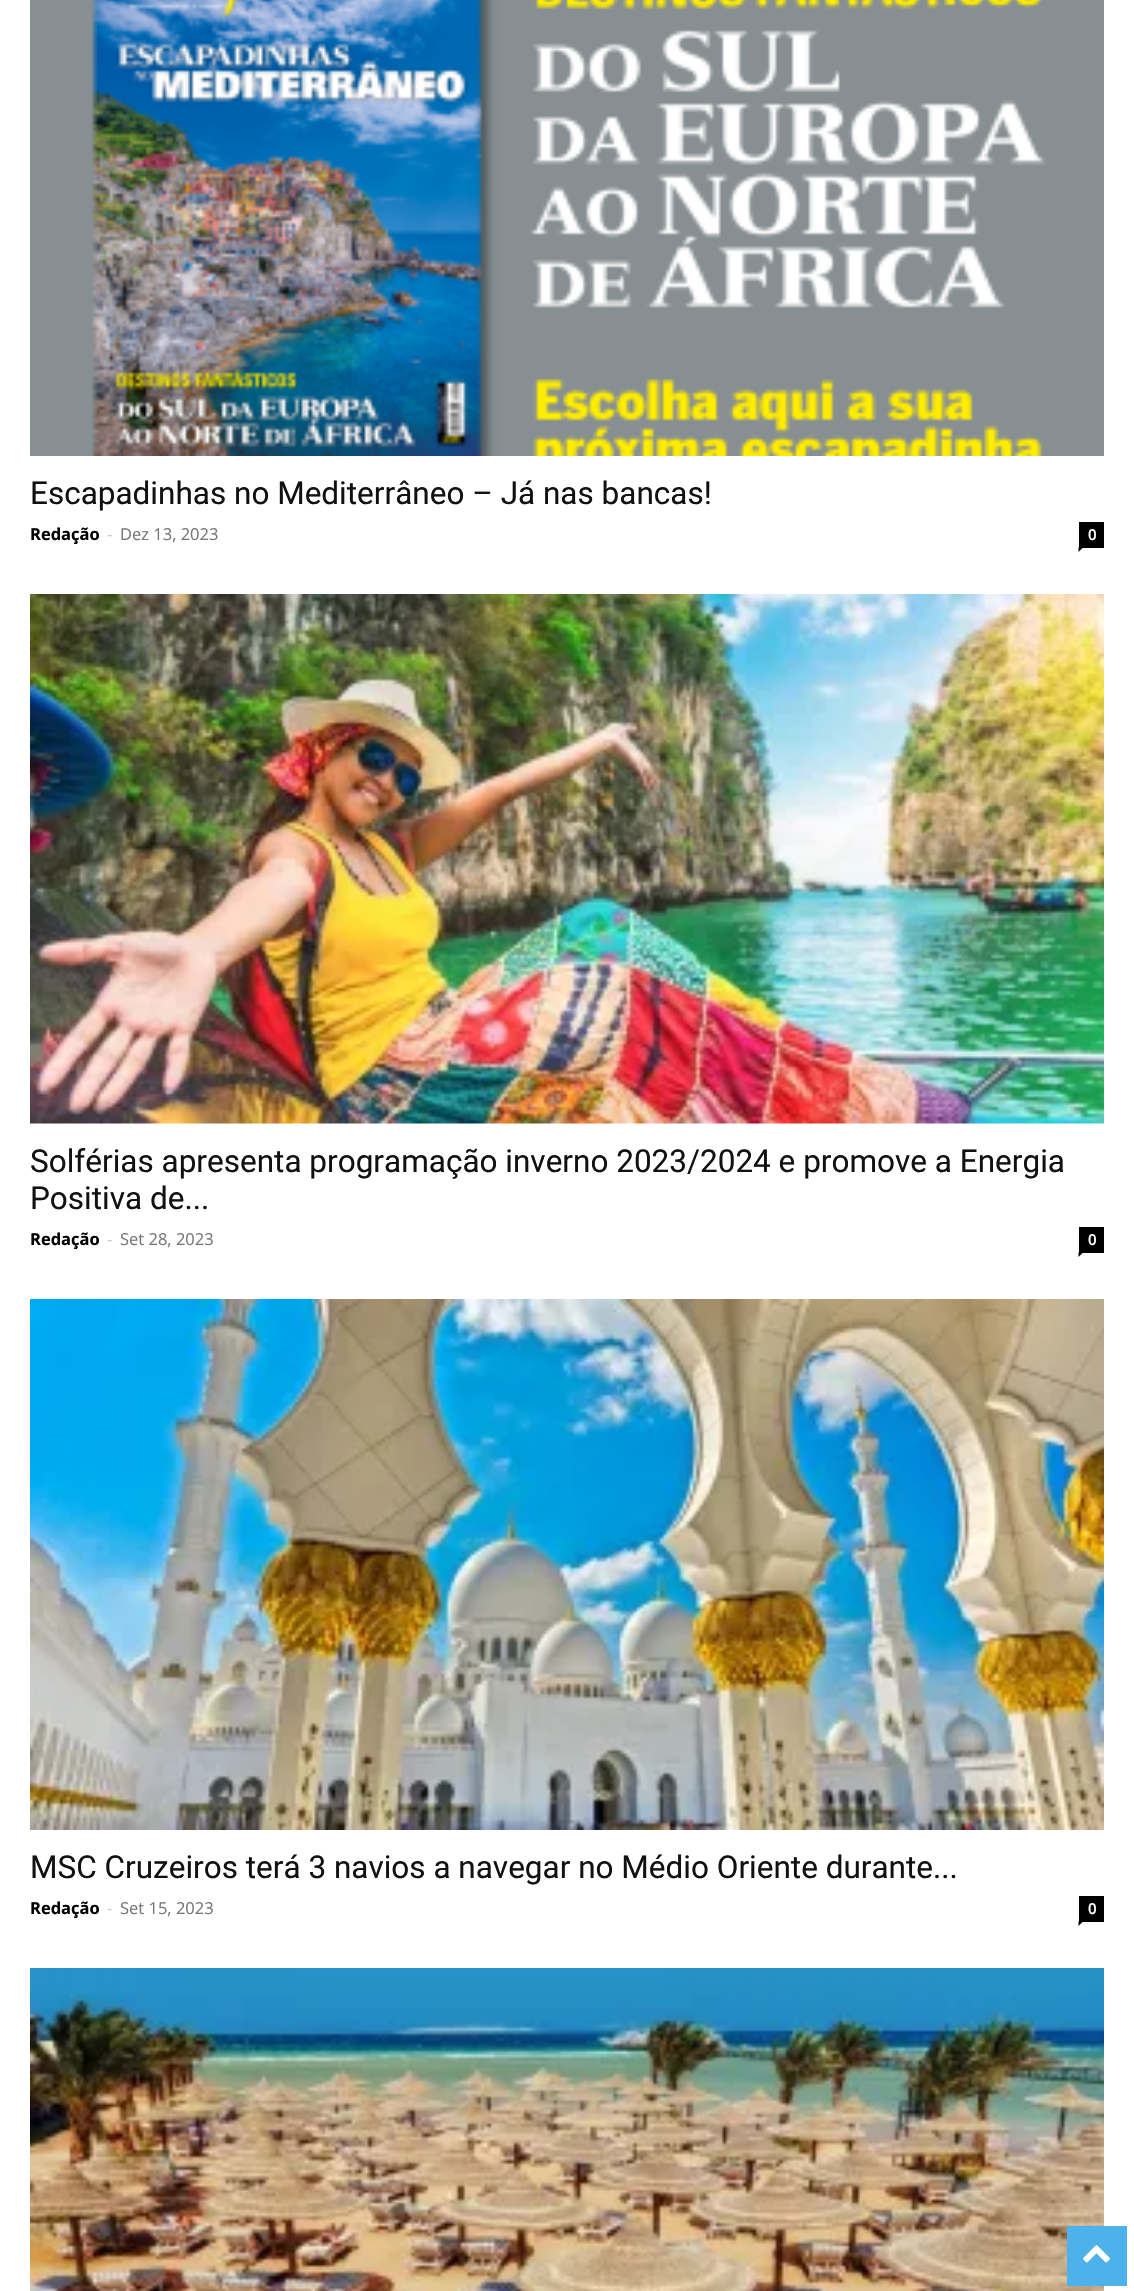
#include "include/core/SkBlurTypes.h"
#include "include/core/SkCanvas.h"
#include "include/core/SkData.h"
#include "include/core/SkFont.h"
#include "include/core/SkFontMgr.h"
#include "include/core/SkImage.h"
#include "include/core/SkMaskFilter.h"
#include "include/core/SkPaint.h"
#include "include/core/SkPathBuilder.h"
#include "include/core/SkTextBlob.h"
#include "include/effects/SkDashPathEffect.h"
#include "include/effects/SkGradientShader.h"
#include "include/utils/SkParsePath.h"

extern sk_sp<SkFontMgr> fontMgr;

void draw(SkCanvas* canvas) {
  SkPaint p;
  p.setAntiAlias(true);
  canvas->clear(SK_ColorWHITE);
  canvas->drawImageRect(SkImages::DeferredFromEncodedData(SkData::MakeFromFileName("images/1.png")), SkRect::MakeLTRB(30, 0, 1104, 456), SkSamplingOptions());
  p.setColor(SK_ColorBLACK);
  canvas->drawRect(SkRect::MakeLTRB(1079, 522, 1104, 548), p);
  canvas->drawPath(SkPathBuilder().moveTo(1078.5f, 547.5f).lineTo(1083, 547.5f).lineTo(1078.5f, 552).close().detach(), p);
  canvas->drawImageRect(SkImages::DeferredFromEncodedData(SkData::MakeFromFileName("images/2.png")), SkRect::MakeLTRB(30, 594, 1104, 1124), SkSamplingOptions());
  canvas->drawRect(SkRect::MakeLTRB(1079, 1227, 1104, 1253), p);
  canvas->drawPath(SkPathBuilder().moveTo(1078.5f, 1252.5f).lineTo(1083, 1252.5f).lineTo(1078.5f, 1257).close().detach(), p);
  canvas->drawImageRect(SkImages::DeferredFromEncodedData(SkData::MakeFromFileName("images/3.png")), SkRect::MakeLTRB(30, 1299, 1104, 1830), SkSamplingOptions());
  canvas->drawRect(SkRect::MakeLTRB(1079, 1896, 1104, 1922), p);
  canvas->drawPath(SkPathBuilder().moveTo(1078.5f, 1921.5f).lineTo(1083, 1921.5f).lineTo(1078.5f, 1926).close().detach(), p);
  canvas->drawImageRect(SkImages::DeferredFromEncodedData(SkData::MakeFromFileName("images/4.png")), SkRect::MakeLTRB(30, 1968, 1104, 2291), SkSamplingOptions());
  p.setColor(SkColorSetRGB(77, 178, 236));
  canvas->drawRect(SkRect::MakeLTRB(1067, 2226, 1127, 2286), p);
  canvas->drawImageRect(SkImages::DeferredFromEncodedData(SkData::MakeFromFileName("images/5.png")), SkRect::MakeLTRB(1083, 2245, 1110, 2263), SkSamplingOptions());
  SkFont font1(fontMgr->matchFamilyStyle("Roboto", SkFontStyle::Normal()), 31.5f);
  font1.setSubpixel(true);
  p.setColor(SkColorSetRGB(17, 17, 17));
  canvas->drawString("Escapadinhas no Mediterrâneo – Já nas bancas!", 30, 504, font1, p);
  SkFont font2(fontMgr->matchFamilyStyle("Open Sans", SkFontStyle::Bold()), 16.5f);
  font2.setSubpixel(true);
  p.setColor(SK_ColorBLACK);
  canvas->drawString("Redação", 30, 540, font2, p);
  SkFont font3(fontMgr->matchFamilyStyle("Open Sans", SkFontStyle::Normal()), 16.5f);
  font3.setSubpixel(true);
  p.setColor(SkColorSetRGB(204, 204, 204));
  canvas->drawString("-", 107, 540, font3, p);
  p.setColor(SkColorSetRGB(118, 118, 118));
  canvas->drawString("Dez 13, 2023", 120, 540, font3, p);
  SkFont font4(fontMgr->matchFamilyStyle("Open Sans", SkFontStyle(600, SkFontStyle::kNormal_Width, SkFontStyle::kUpright_Slant)), 15);
  font4.setSubpixel(true);
  p.setColor(SK_ColorWHITE);
  canvas->drawString("0", 1088, 540, font4, p);
  p.setColor(SkColorSetRGB(17, 17, 17));
  canvas->drawString("Solférias apresenta programação inverno 2023/2024 e promove a Energia", 30, 1172, font1, p);
  canvas->drawString("Positiva de...", 30, 1209, font1, p);
  p.setColor(SK_ColorBLACK);
  canvas->drawString("Redação", 30, 1245, font2, p);
  p.setColor(SkColorSetRGB(204, 204, 204));
  canvas->drawString("-", 107, 1245, font3, p);
  p.setColor(SkColorSetRGB(118, 118, 118));
  canvas->drawString("Set 28, 2023", 120, 1245, font3, p);
  p.setColor(SK_ColorWHITE);
  canvas->drawString("0", 1088, 1245, font4, p);
  p.setColor(SkColorSetRGB(17, 17, 17));
  canvas->drawString("MSC Cruzeiros terá 3 navios a navegar no Médio Oriente durante...", 30, 1878, font1, p);
  p.setColor(SK_ColorBLACK);
  canvas->drawString("Redação", 30, 1914, font2, p);
  p.setColor(SkColorSetRGB(204, 204, 204));
  canvas->drawString("-", 107, 1914, font3, p);
  p.setColor(SkColorSetRGB(118, 118, 118));
  canvas->drawString("Set 15, 2023", 120, 1914, font3, p);
  p.setColor(SK_ColorWHITE);
  canvas->drawString("0", 1088, 1914, font4, p);
}
